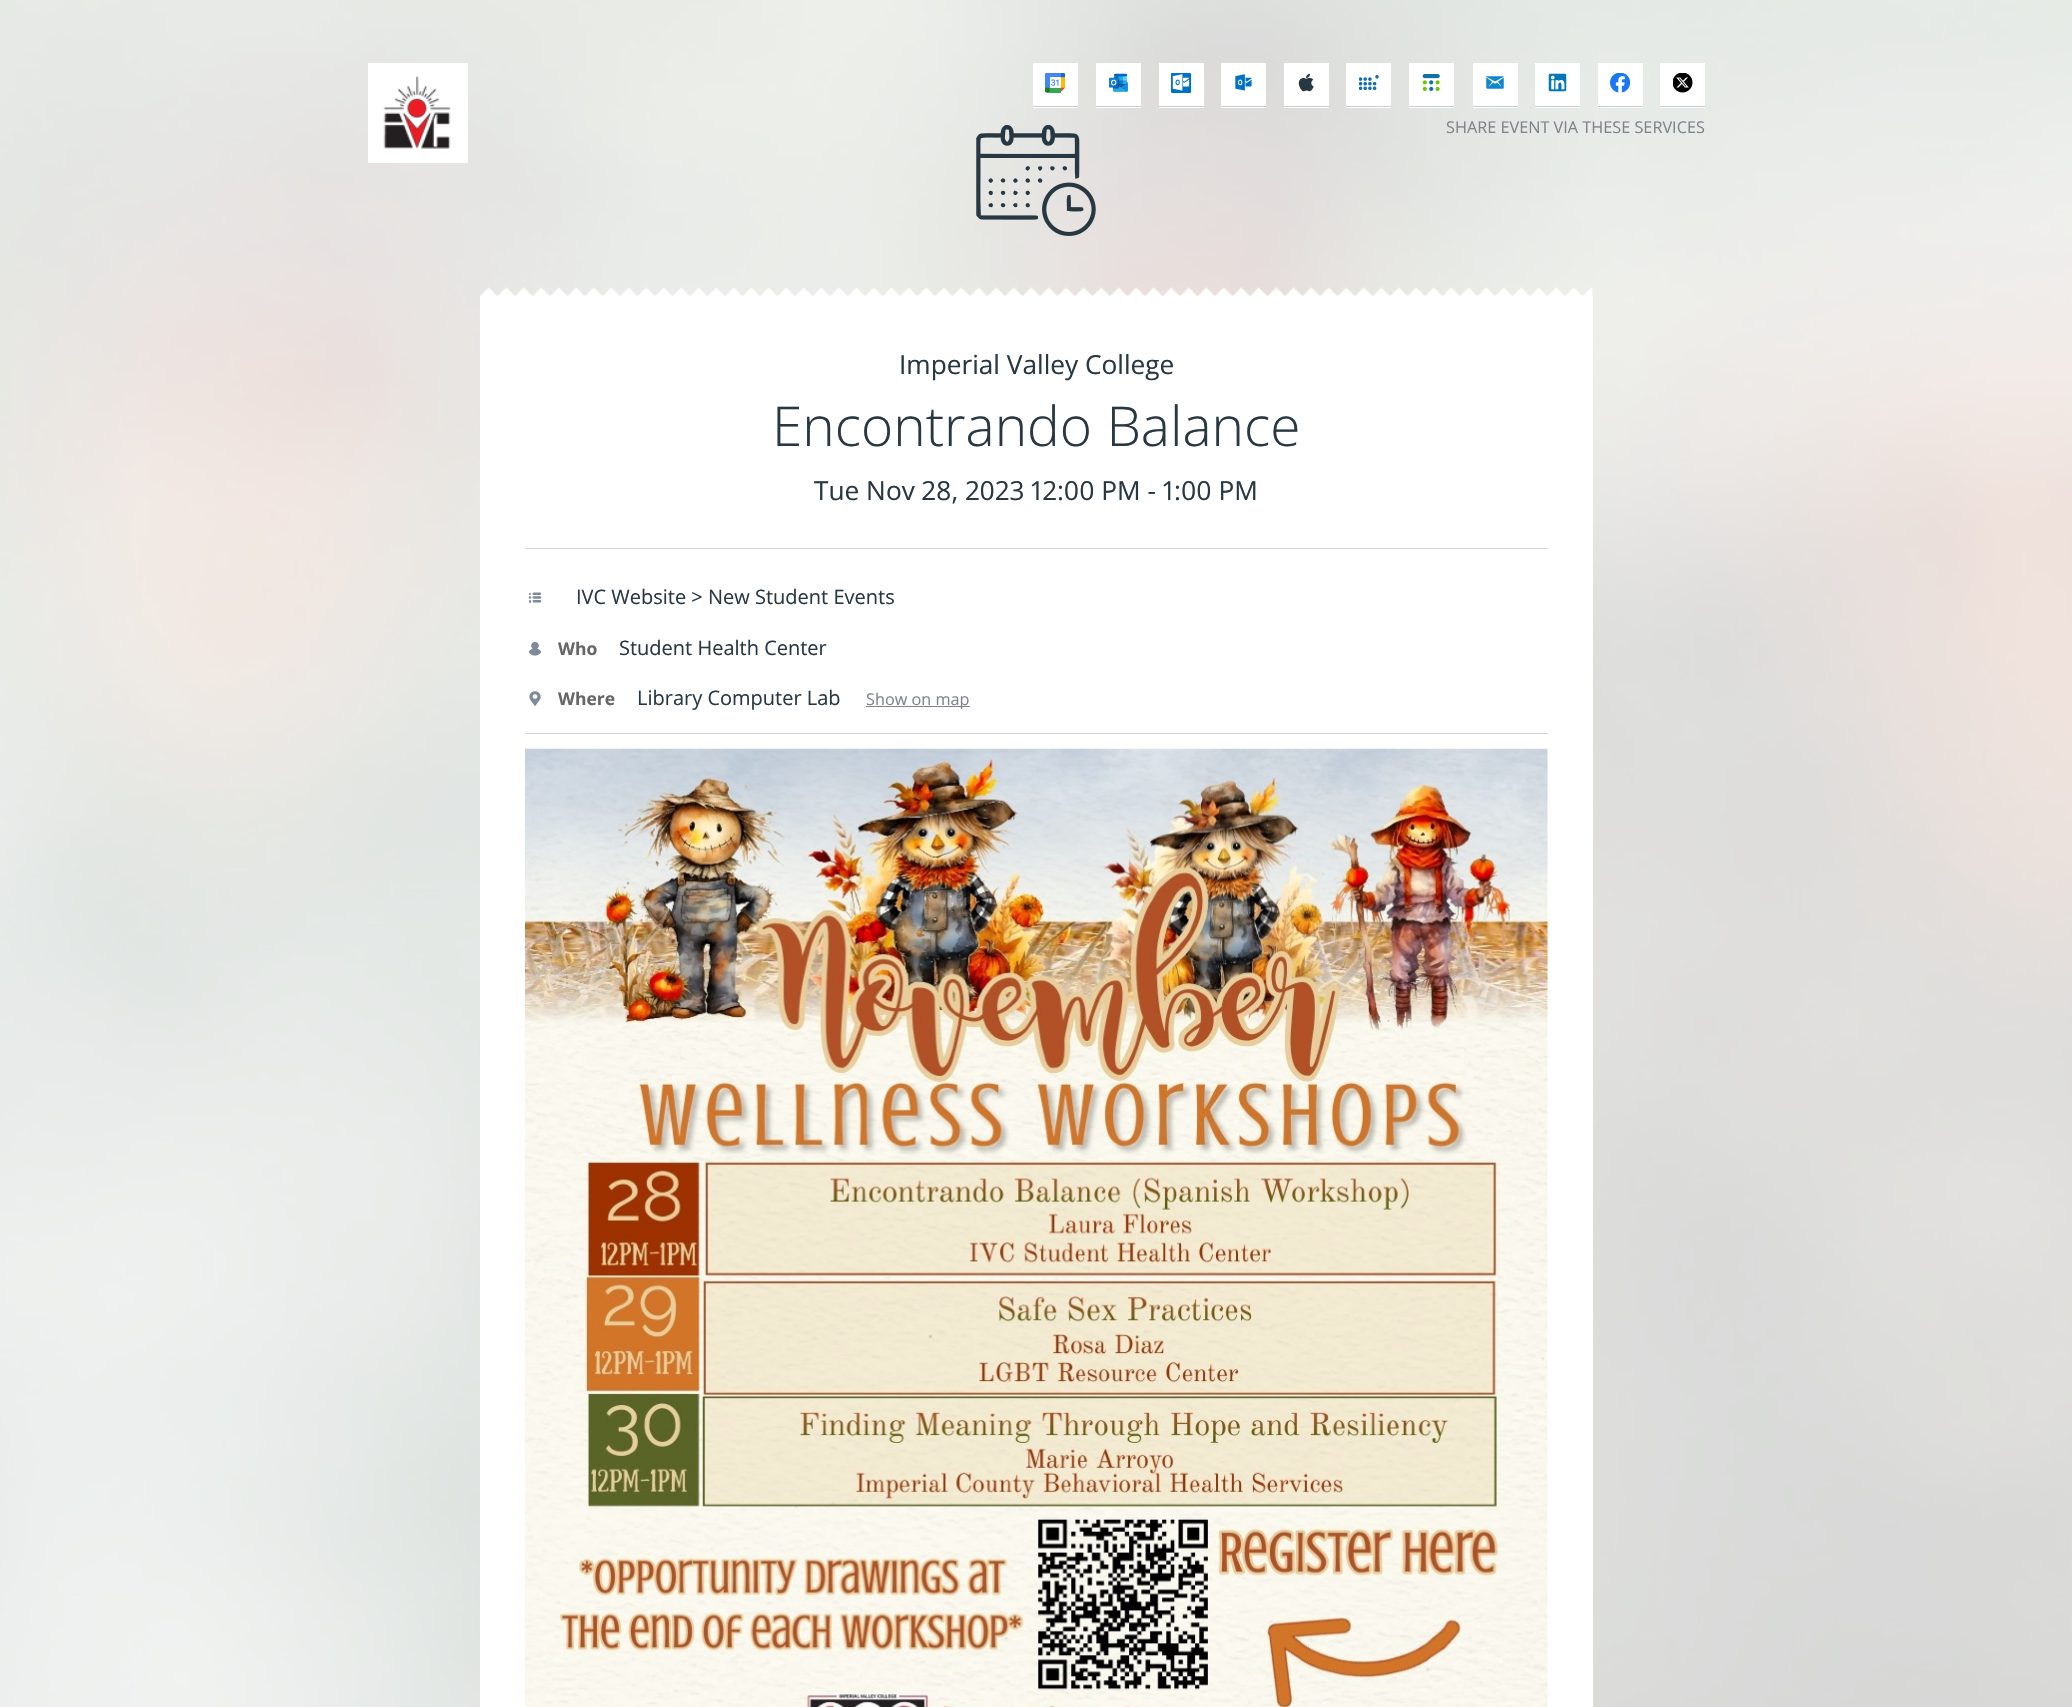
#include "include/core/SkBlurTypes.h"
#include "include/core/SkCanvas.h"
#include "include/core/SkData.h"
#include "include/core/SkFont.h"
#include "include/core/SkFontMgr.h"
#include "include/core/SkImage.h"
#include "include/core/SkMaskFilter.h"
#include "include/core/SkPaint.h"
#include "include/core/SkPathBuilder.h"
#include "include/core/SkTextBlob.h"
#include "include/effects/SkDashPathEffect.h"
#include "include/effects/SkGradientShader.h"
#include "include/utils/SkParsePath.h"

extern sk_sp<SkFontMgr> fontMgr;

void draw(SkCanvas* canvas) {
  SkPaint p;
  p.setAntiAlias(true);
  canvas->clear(SK_ColorWHITE);
  canvas->drawImageRect(SkImages::DeferredFromEncodedData(SkData::MakeFromFileName("images/1.png")), SkRect::MakeLTRB(0, 0, 2072, 1707), SkSamplingOptions());
  p.setColor(SK_ColorWHITE);
  canvas->drawRect(SkRect::MakeLTRB(368, 63, 468, 163), p);
  canvas->drawImageRect(SkImages::DeferredFromEncodedData(SkData::MakeFromFileName("images/2.png")), SkRect::MakeLTRB(383, 76, 451, 149), SkSamplingOptions());
  canvas->drawRect(SkRect::MakeLTRB(1033, 63, 1078, 108), p);
  p.setColor(SkColorSetRGB(204, 204, 204));
  canvas->drawRect(SkRect::MakeLTRB(1033, 106, 1078, 107), p);
  canvas->drawImageRect(SkImages::DeferredFromEncodedData(SkData::MakeFromFileName("images/3.png")), SkRect::MakeLTRB(1045, 73, 1065, 93), SkSamplingOptions());
  p.setColor(SK_ColorWHITE);
  canvas->drawRect(SkRect::MakeLTRB(1096, 63, 1141, 108), p);
  p.setColor(SkColorSetRGB(204, 204, 204));
  canvas->drawRect(SkRect::MakeLTRB(1096, 106, 1141, 107), p);
  canvas->drawImageRect(SkImages::DeferredFromEncodedData(SkData::MakeFromFileName("images/4.png")), SkRect::MakeLTRB(1109, 73, 1128, 92), SkSamplingOptions());
  p.setColor(SK_ColorWHITE);
  canvas->drawRect(SkRect::MakeLTRB(1159, 63, 1204, 108), p);
  p.setColor(SkColorSetRGB(204, 204, 204));
  canvas->drawRect(SkRect::MakeLTRB(1159, 106, 1204, 107), p);
  canvas->drawImageRect(SkImages::DeferredFromEncodedData(SkData::MakeFromFileName("images/5.png")), SkRect::MakeLTRB(1171, 73, 1191, 93), SkSamplingOptions());
  p.setColor(SK_ColorWHITE);
  canvas->drawRect(SkRect::MakeLTRB(1221, 63, 1266, 108), p);
  p.setColor(SkColorSetRGB(204, 204, 204));
  canvas->drawRect(SkRect::MakeLTRB(1221, 106, 1266, 107), p);
  canvas->drawImageRect(SkImages::DeferredFromEncodedData(SkData::MakeFromFileName("images/6.png")), SkRect::MakeLTRB(1235, 74, 1252, 91), SkSamplingOptions());
  p.setColor(SK_ColorWHITE);
  canvas->drawRect(SkRect::MakeLTRB(1284, 63, 1329, 108), p);
  p.setColor(SkColorSetRGB(204, 204, 204));
  canvas->drawRect(SkRect::MakeLTRB(1284, 106, 1329, 107), p);
  canvas->drawImageRect(SkImages::DeferredFromEncodedData(SkData::MakeFromFileName("images/7.png")), SkRect::MakeLTRB(1298, 73, 1314, 92), SkSamplingOptions());
  p.setColor(SK_ColorWHITE);
  canvas->drawRect(SkRect::MakeLTRB(1346, 63, 1391, 108), p);
  p.setColor(SkColorSetRGB(204, 204, 204));
  canvas->drawRect(SkRect::MakeLTRB(1346, 106, 1391, 107), p);
  canvas->drawImageRect(SkImages::DeferredFromEncodedData(SkData::MakeFromFileName("images/8.png")), SkRect::MakeLTRB(1359, 75, 1379, 91), SkSamplingOptions());
  p.setColor(SK_ColorWHITE);
  canvas->drawRect(SkRect::MakeLTRB(1409, 63, 1454, 108), p);
  p.setColor(SkColorSetRGB(204, 204, 204));
  canvas->drawRect(SkRect::MakeLTRB(1409, 106, 1454, 107), p);
  canvas->drawImageRect(SkImages::DeferredFromEncodedData(SkData::MakeFromFileName("images/9.png")), SkRect::MakeLTRB(1422, 74, 1440, 91), SkSamplingOptions());
  p.setColor(SK_ColorWHITE);
  canvas->drawRect(SkRect::MakeLTRB(1473, 63, 1518, 108), p);
  p.setColor(SkColorSetRGB(204, 204, 204));
  canvas->drawRect(SkRect::MakeLTRB(1473, 106, 1518, 107), p);
  canvas->drawImageRect(SkImages::DeferredFromEncodedData(SkData::MakeFromFileName("images/10.png")), SkRect::MakeLTRB(1486, 76, 1504, 89), SkSamplingOptions());
  p.setColor(SK_ColorWHITE);
  canvas->drawRect(SkRect::MakeLTRB(1535, 63, 1580, 108), p);
  p.setColor(SkColorSetRGB(204, 204, 204));
  canvas->drawRect(SkRect::MakeLTRB(1535, 106, 1580, 107), p);
  canvas->drawImageRect(SkImages::DeferredFromEncodedData(SkData::MakeFromFileName("images/11.png")), SkRect::MakeLTRB(1548, 73, 1567, 92), SkSamplingOptions());
  p.setColor(SK_ColorWHITE);
  canvas->drawRect(SkRect::MakeLTRB(1598, 63, 1643, 108), p);
  p.setColor(SkColorSetRGB(204, 204, 204));
  canvas->drawRect(SkRect::MakeLTRB(1598, 106, 1643, 107), p);
  canvas->drawImageRect(SkImages::DeferredFromEncodedData(SkData::MakeFromFileName("images/12.png")), SkRect::MakeLTRB(1610, 73, 1630, 93), SkSamplingOptions());
  p.setColor(SK_ColorWHITE);
  canvas->drawRect(SkRect::MakeLTRB(1660, 63, 1705, 108), p);
  p.setColor(SkColorSetRGB(204, 204, 204));
  canvas->drawRect(SkRect::MakeLTRB(1660, 106, 1705, 107), p);
  canvas->drawImageRect(SkImages::DeferredFromEncodedData(SkData::MakeFromFileName("images/13.png")), SkRect::MakeLTRB(1673, 73, 1693, 93), SkSamplingOptions());
  canvas->drawImageRect(SkImages::DeferredFromEncodedData(SkData::MakeFromFileName("images/14.png")), SkRect::MakeLTRB(976, 125, 1096, 236), SkSamplingOptions());
  canvas->drawImageRect(SkImages::DeferredFromEncodedData(SkData::MakeFromFileName("images/15.png")), SkRect::MakeLTRB(480, 287, 1593, 296), SkSamplingOptions());
  p.setColor(SK_ColorWHITE);
  canvas->drawRect(SkRect::MakeLTRB(480, 296, 1593, 1707), p);
  p.setColor(SkColorSetRGB(213, 213, 213));
  canvas->drawRect(SkRect::MakeLTRB(525, 548, 1548, 549), p);
  canvas->drawImageRect(SkImages::DeferredFromEncodedData(SkData::MakeFromFileName("images/16.png")), SkRect::MakeLTRB(528, 592, 542, 603), SkSamplingOptions());
  canvas->drawImageRect(SkImages::DeferredFromEncodedData(SkData::MakeFromFileName("images/17.png")), SkRect::MakeLTRB(528, 641, 542, 656), SkSamplingOptions());
  canvas->drawImageRect(SkImages::DeferredFromEncodedData(SkData::MakeFromFileName("images/18.png")), SkRect::MakeLTRB(529, 691, 541, 706), SkSamplingOptions());
  p.setColor(SkColorSetRGB(127, 132, 140));
  canvas->drawRect(SkRect::MakeLTRB(866, 706, 970, 707), p);
  p.setColor(SkColorSetRGB(213, 213, 213));
  canvas->drawRect(SkRect::MakeLTRB(525, 733, 1548, 734), p);
  canvas->drawImageRect(SkImages::DeferredFromEncodedData(SkData::MakeFromFileName("images/19.png")), SkRect::MakeLTRB(525, 748, 1548, 1707), SkSamplingOptions());
  SkFont font1(fontMgr->matchFamilyStyle("Open Sans", SkFontStyle::Normal()), 16.25f);
  font1.setSubpixel(true);
  p.setColor(SkColorSetRGB(127, 132, 140));
  canvas->drawString("SHARE EVENT VIA THESE SERVICES", 1446, 133, font1, p);
  SkFont font2(fontMgr->matchFamilyStyle("Open Sans", SkFontStyle::Normal()), 26.25f);
  font2.setSubpixel(true);
  p.setColor(SkColorSetRGB(40, 56, 66));
  canvas->drawString("Imperial Valley College", 899, 374, font2, p);
  SkFont font3(fontMgr->matchFamilyStyle("Open Sans", SkFontStyle(300, SkFontStyle::kNormal_Width, SkFontStyle::kUpright_Slant)), 55);
  font3.setSubpixel(true);
  canvas->drawString("Encontrando Balance", 772, 446, font3, p);
  SkFont font4(fontMgr->matchFamilyStyle("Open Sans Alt", SkFontStyle::Normal()), 26.25f);
  font4.setSubpixel(true);
  canvas->drawString("Tue Nov 28, 2023 12:00 PM - 1:00 PM", 814, 500, font4, p);
  SkFont font5(fontMgr->matchFamilyStyle("Open Sans", SkFontStyle::Normal()), 20);
  font5.setSubpixel(true);
  canvas->drawString("IVC Website > New Student Events", 576, 604, font5, p);
  SkFont font6(fontMgr->matchFamilyStyle("Open Sans", SkFontStyle::Bold()), 17.5f);
  font6.setSubpixel(true);
  p.setColor(SkColorSetRGB(102, 102, 102));
  canvas->drawString("Who", 558, 655, font6, p);
  p.setColor(SkColorSetRGB(40, 56, 66));
  canvas->drawString("Student Health Center", 619, 655, font5, p);
  p.setColor(SkColorSetRGB(102, 102, 102));
  canvas->drawString("Where", 558, 705, font6, p);
  p.setColor(SkColorSetRGB(40, 56, 66));
  canvas->drawString("Library Computer Lab", 637, 705, font5, p);
  p.setColor(SkColorSetRGB(127, 132, 140));
  canvas->drawString("Show on map", 866, 705, font1, p);
}
